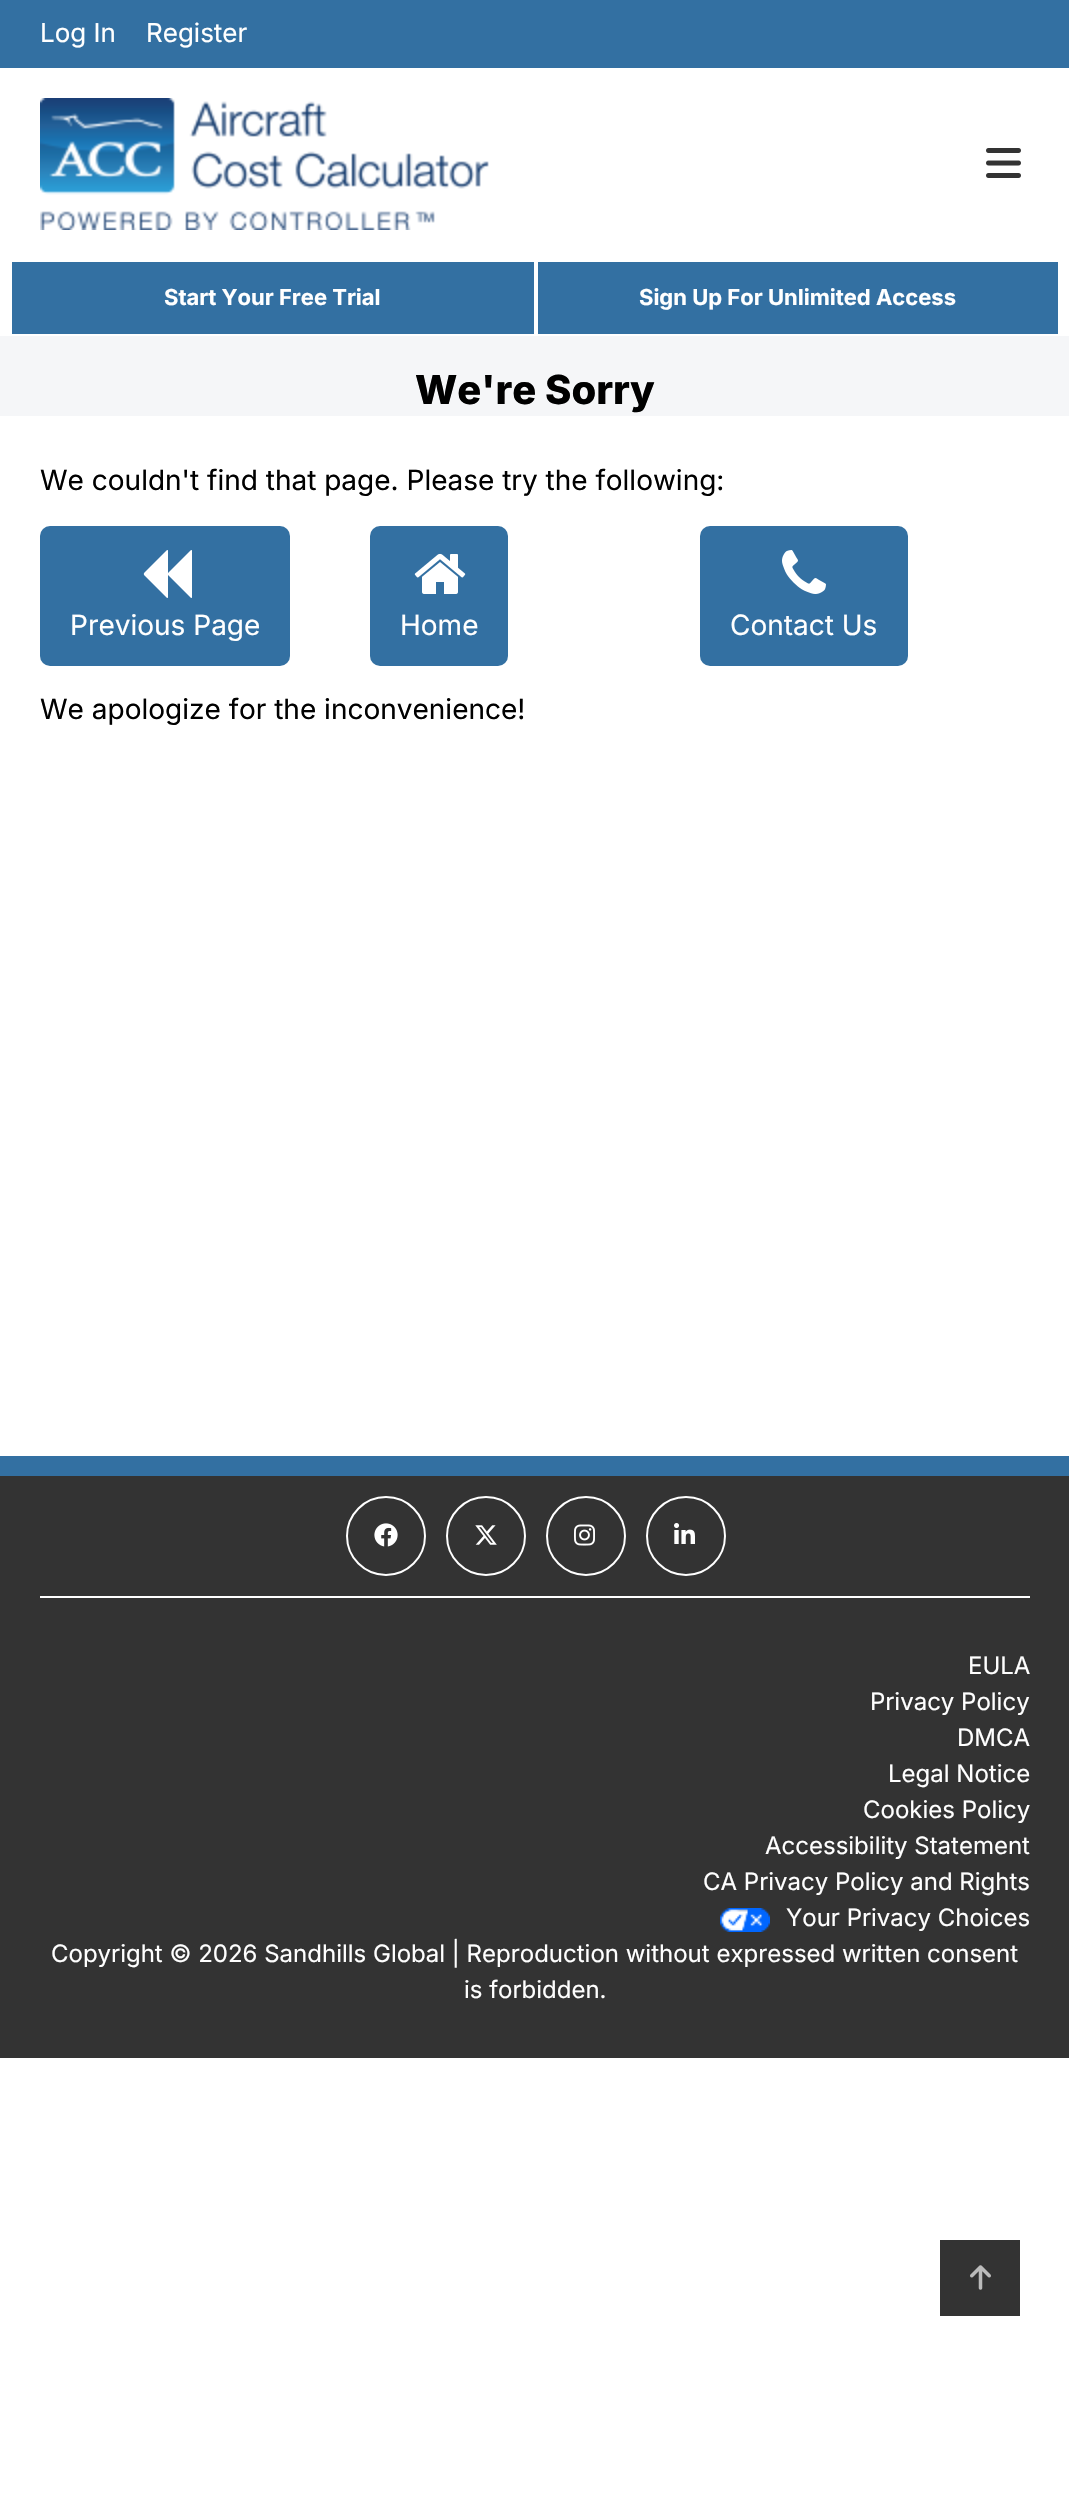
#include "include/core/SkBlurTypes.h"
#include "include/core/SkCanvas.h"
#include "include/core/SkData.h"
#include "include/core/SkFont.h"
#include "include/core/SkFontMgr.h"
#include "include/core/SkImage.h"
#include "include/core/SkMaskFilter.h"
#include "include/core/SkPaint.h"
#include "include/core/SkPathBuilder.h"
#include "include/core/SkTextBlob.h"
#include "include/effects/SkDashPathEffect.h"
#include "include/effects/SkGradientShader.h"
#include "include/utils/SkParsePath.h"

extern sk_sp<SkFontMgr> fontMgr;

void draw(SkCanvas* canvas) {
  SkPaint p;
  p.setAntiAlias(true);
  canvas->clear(SK_ColorWHITE);
  p.setColor(SkColorSetRGB(51, 112, 162));
  canvas->drawRect(SkRect::MakeLTRB(0, 0, 1069, 68), p);
  canvas->drawImageRect(SkImages::DeferredFromEncodedData(SkData::MakeFromFileName("images/1.png")), SkRect::MakeLTRB(40, 98, 489, 230), SkSamplingOptions());
  canvas->drawImageRect(SkImages::DeferredFromEncodedData(SkData::MakeFromFileName("images/2.png")), SkRect::MakeLTRB(986, 148, 1021, 178), SkSamplingOptions());
  canvas->drawRect(SkRect::MakeLTRB(12, 262, 534, 334), p);
  canvas->drawRect(SkRect::MakeLTRB(538, 262, 1058, 334), p);
  p.setColor(SkColorSetRGB(245, 246, 248));
  canvas->drawRect(SkRect::MakeLTRB(0, 336, 1069, 416), p);
  p.setColor(SkColorSetRGB(51, 112, 162));
  canvas->drawRoundRect(SkRect::MakeLTRB(40, 526, 290, 666), 10, 10, p);
  canvas->drawImageRect(SkImages::DeferredFromEncodedData(SkData::MakeFromFileName("images/3.png")), SkRect::MakeLTRB(143, 550, 192, 598), SkSamplingOptions());
  canvas->drawRoundRect(SkRect::MakeLTRB(370, 526, 508, 666), 10, 10, p);
  canvas->drawImageRect(SkImages::DeferredFromEncodedData(SkData::MakeFromFileName("images/4.png")), SkRect::MakeLTRB(414, 553, 466, 594), SkSamplingOptions());
  canvas->drawRoundRect(SkRect::MakeLTRB(700, 526, 908, 666), 10, 10, p);
  canvas->drawImageRect(SkImages::DeferredFromEncodedData(SkData::MakeFromFileName("images/5.png")), SkRect::MakeLTRB(782, 550, 826, 594), SkSamplingOptions());
  p.setColor(SkColorSetRGB(51, 51, 51));
  canvas->drawRect(SkRect::MakeLTRB(0, 1476, 1069, 2058), p);
  p.setColor(SkColorSetRGB(51, 112, 162));
  canvas->drawRect(SkRect::MakeLTRB(0, 1456, 1069, 1476), p);
  p.setStyle(SkPaint::kStroke_Style);
  p.setStrokeWidth(2);
  p.setColor(SK_ColorWHITE);
  canvas->drawCircle(386, 1536, 39, p);
  canvas->drawImageRect(SkImages::DeferredFromEncodedData(SkData::MakeFromFileName("images/6.png")), SkRect::MakeLTRB(374, 1523, 398, 1547), SkSamplingOptions());
  canvas->drawCircle(486, 1536, 39, p);
  canvas->drawImageRect(SkImages::DeferredFromEncodedData(SkData::MakeFromFileName("images/7.png")), SkRect::MakeLTRB(475, 1525, 497, 1545), SkSamplingOptions());
  canvas->drawCircle(586, 1536, 39, p);
  canvas->drawImageRect(SkImages::DeferredFromEncodedData(SkData::MakeFromFileName("images/8.png")), SkRect::MakeLTRB(574, 1524, 595, 1546), SkSamplingOptions());
  canvas->drawCircle(686, 1536, 39, p);
  canvas->drawImageRect(SkImages::DeferredFromEncodedData(SkData::MakeFromFileName("images/9.png")), SkRect::MakeLTRB(674, 1523, 695, 1544), SkSamplingOptions());
  p.setStyle(SkPaint::kFill_Style);
  canvas->drawRect(SkRect::MakeLTRB(40, 1596, 1030, 1598), p);
  canvas->drawImageRect(SkImages::DeferredFromEncodedData(SkData::MakeFromFileName("images/10.png")), SkRect::MakeLTRB(720, 1908, 770, 1932), SkSamplingOptions());
  p.setColor(SkColorSetRGB(51, 51, 51));
  canvas->drawRect(SkRect::MakeLTRB(940, 2240, 1020, 2316), p);
  canvas->drawImageRect(SkImages::DeferredFromEncodedData(SkData::MakeFromFileName("images/11.png")), SkRect::MakeLTRB(970, 2265, 991, 2290), SkSamplingOptions());
  SkFont font1(fontMgr->matchFamilyStyle("Inter", SkFontStyle::Normal()), 26);
  font1.setSubpixel(true);
  p.setColor(SK_ColorWHITE);
  canvas->drawString("Log In", 40, 42, font1, p);
  canvas->drawString("Register", 146, 42, font1, p);
  SkFont font2(fontMgr->matchFamilyStyle("Inter", SkFontStyle::Bold()), 22);
  font2.setSubpixel(true);
  canvas->drawString("Start Your Free Trial", 164, 305, font2, p);
  canvas->drawString("Sign Up For Unlimited Access", 639, 305, font2, p);
  SkFont font3(fontMgr->matchFamilyStyle("Inter", SkFontStyle(800, SkFontStyle::kNormal_Width, SkFontStyle::kUpright_Slant)), 40);
  font3.setSubpixel(true);
  p.setColor(SK_ColorBLACK);
  canvas->drawString("We're Sorry", 415, 404, font3, p);
  SkFont font4(fontMgr->matchFamilyStyle("Inter", SkFontStyle::Normal()), 28);
  font4.setSubpixel(true);
  canvas->drawString("We couldn't find that page. Please try the following:", 40, 490, font4, p);
  p.setColor(SK_ColorWHITE);
  canvas->drawString("Previous Page", 70, 635, font4, p);
  canvas->drawString("Home", 400, 635, font4, p);
  canvas->drawString("Contact Us", 730, 635, font4, p);
  p.setColor(SK_ColorBLACK);
  canvas->drawString("We apologize for the inconvenience!", 40, 719, font4, p);
  SkFont font5(fontMgr->matchFamilyStyle("Inter", SkFontStyle::Normal()), 24);
  font5.setSubpixel(true);
  p.setColor(SK_ColorWHITE);
  canvas->drawString("EULA", 968, 1674, font5, p);
  canvas->drawString("Privacy Policy", 870, 1710, font5, p);
  canvas->drawString("DMCA", 957, 1746, font5, p);
  canvas->drawString("Legal Notice", 888, 1782, font5, p);
  canvas->drawString("Cookies Policy", 863, 1818, font5, p);
  canvas->drawString("Accessibility Statement", 765, 1854, font5, p);
  canvas->drawString("CA Privacy Policy and Rights", 703, 1890, font5, p);
  canvas->drawString("Your Privacy Choices", 786, 1926, font5, p);
  canvas->drawString("Copyright © 2026 Sandhills Global | Reproduction without expressed written consent", 51, 1962, font5, p);
  canvas->drawString("is forbidden.", 464, 1998, font5, p);
}
